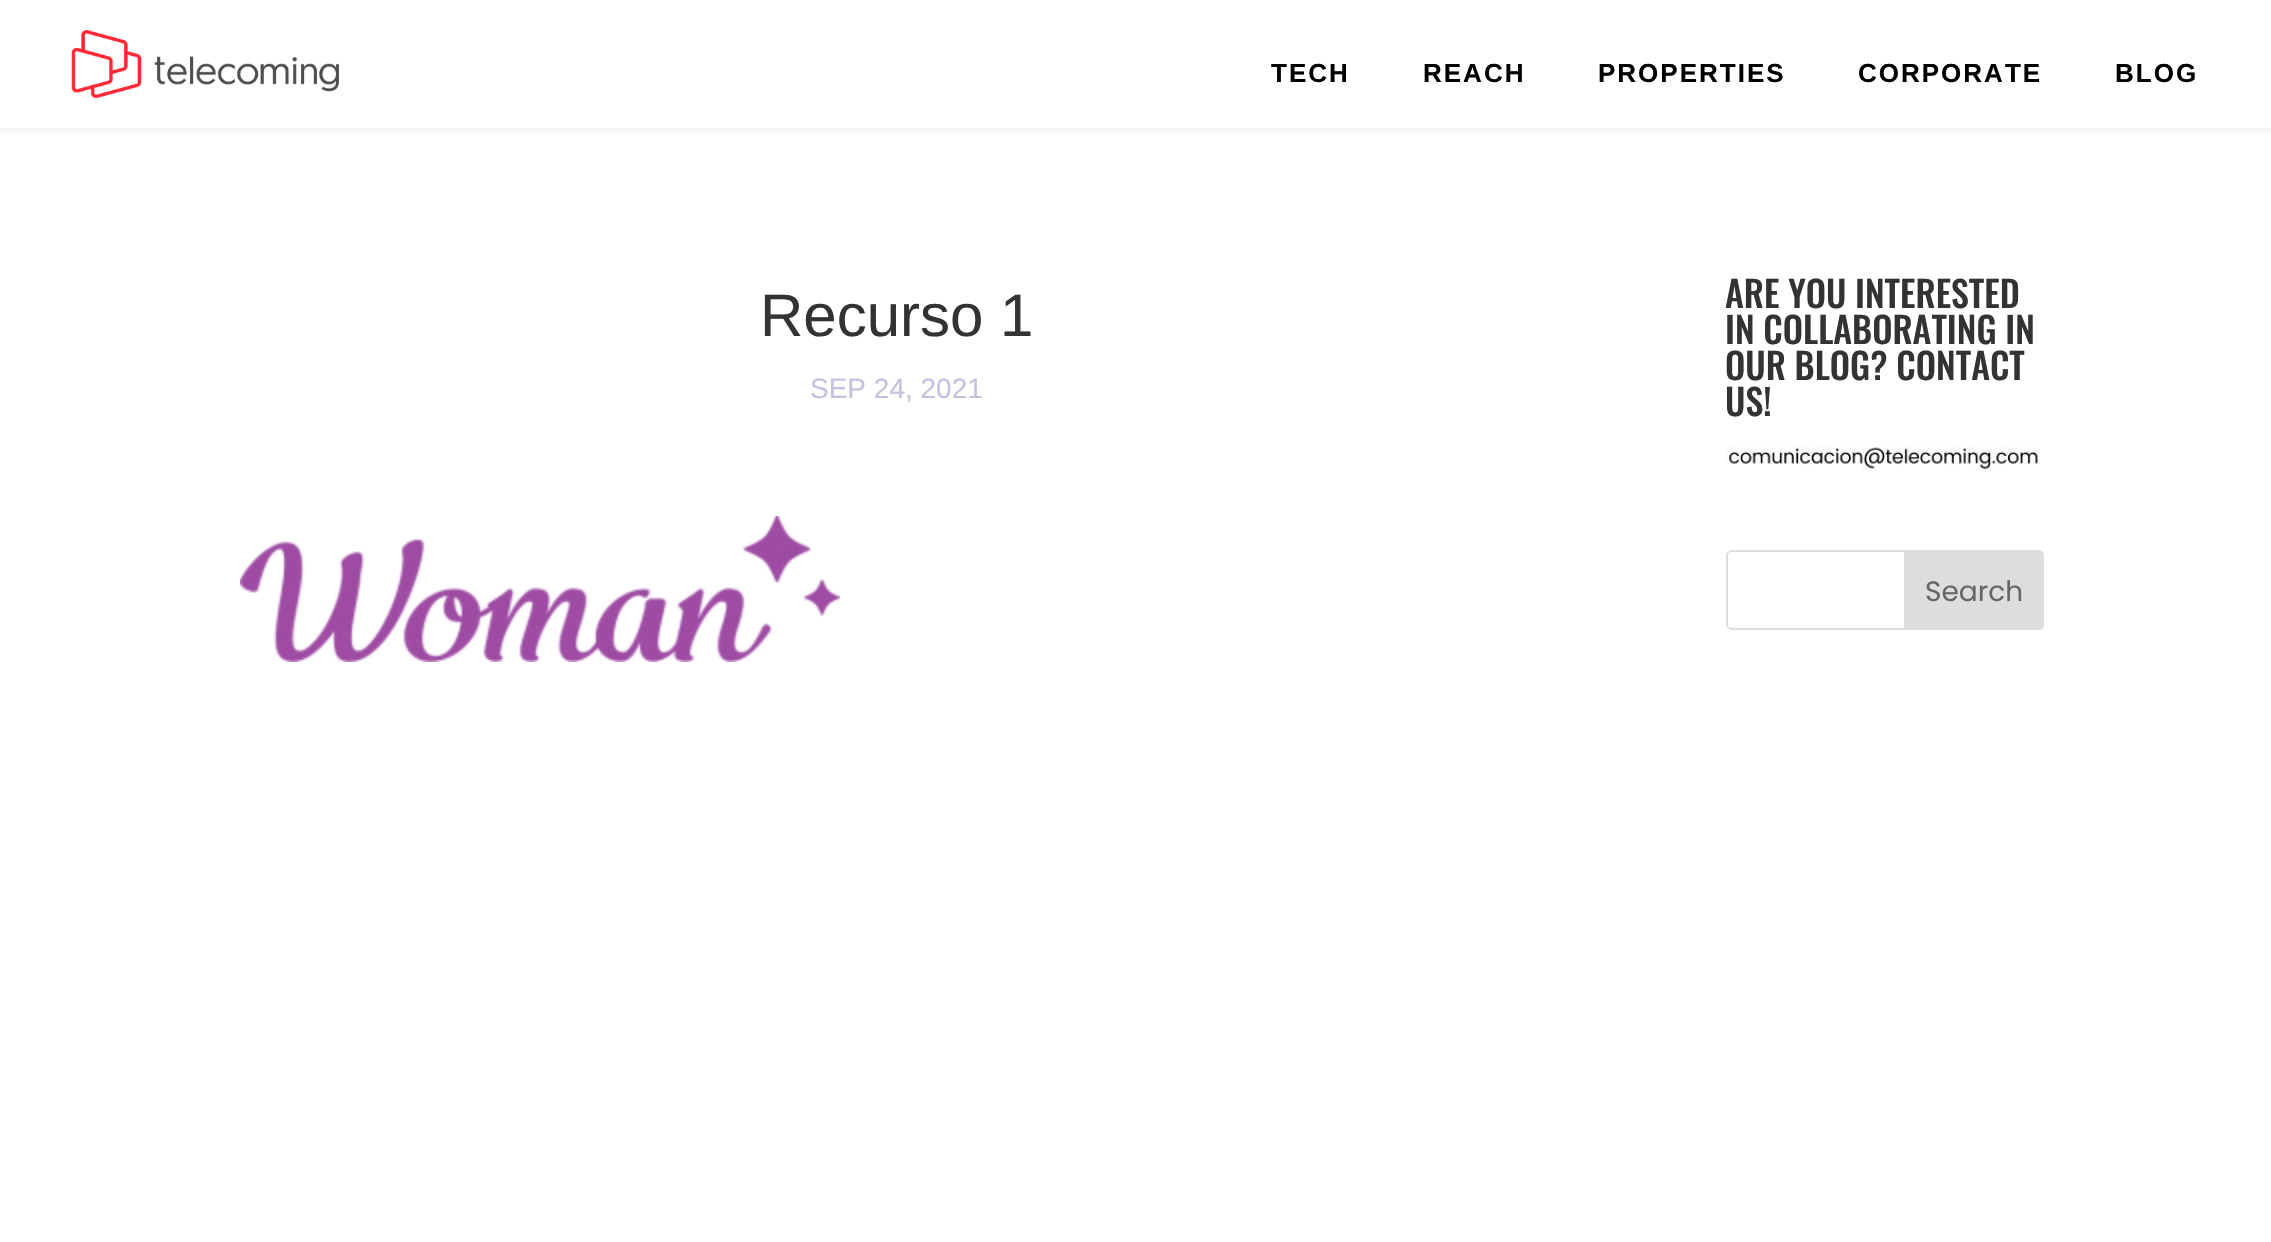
#include "include/core/SkBlurTypes.h"
#include "include/core/SkCanvas.h"
#include "include/core/SkData.h"
#include "include/core/SkFont.h"
#include "include/core/SkFontMgr.h"
#include "include/core/SkImage.h"
#include "include/core/SkMaskFilter.h"
#include "include/core/SkPaint.h"
#include "include/core/SkPathBuilder.h"
#include "include/core/SkTextBlob.h"
#include "include/effects/SkDashPathEffect.h"
#include "include/effects/SkGradientShader.h"
#include "include/utils/SkParsePath.h"

extern sk_sp<SkFontMgr> fontMgr;

void draw(SkCanvas* canvas) {
  SkPaint p;
  p.setAntiAlias(true);
  auto spacedText = [&](const char* s, float x, float y, const SkFont& font, const SkPaint& ink, float letter, float word) {
    std::vector<SkGlyphID> glyphs(font.countText(s, strlen(s), SkTextEncoding::kUTF8));
    std::vector<float> xs(glyphs.size());
    font.textToGlyphs(s, strlen(s), SkTextEncoding::kUTF8, glyphs);
    font.getXPos(glyphs, xs, x);
    float extra = 0;
    for (size_t i = 0; i < glyphs.size(); i++) {
      xs[i] += extra;
      extra += letter + word * (glyphs[i] == font.unicharToGlyph(' '));
    }
    canvas->drawTextBlob(SkTextBlob::MakeFromPosHGlyphs(glyphs, xs, y, font), 0, 0, ink);
  };
  canvas->clear(SK_ColorWHITE);
  canvas->save();
  canvas->clipRect(SkRect::MakeLTRB(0, 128, 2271, 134));
  p.setColor(SkColorSetARGB(26, 0, 0, 0));
  p.setMaskFilter(SkMaskFilter::MakeBlur(kNormal_SkBlurStyle, 7));
  canvas->drawRect(SkRect::MakeLTRB(0, 0, 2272, 128), p);
  p.setMaskFilter(nullptr);
  canvas->restore();
  canvas->drawImageRect(SkImages::DeferredFromEncodedData(SkData::MakeFromFileName("images/1.png")), SkRect::MakeLTRB(71, 30, 339, 98), SkSamplingOptions());
  canvas->drawImageRect(SkImages::DeferredFromEncodedData(SkData::MakeFromFileName("images/2.png")), SkRect::MakeLTRB(240, 516, 840, 662), SkSamplingOptions());
  canvas->drawImageRect(SkImages::DeferredFromEncodedData(SkData::MakeFromFileName("images/3.png")), SkRect::MakeLTRB(1726, 446, 2040, 472), SkSamplingOptions());
  p.setStyle(SkPaint::kStroke_Style);
  p.setStrokeWidth(2);
  p.setColor(SkColorSetRGB(221, 221, 221));
  canvas->drawRoundRect(SkRect::MakeLTRB(1727, 551, 2043, 629), 5, 5, p);
  p.setStyle(SkPaint::kFill_Style);
  canvas->drawPath(SkPathBuilder().moveTo(1905, 551).lineTo(2038, 551).cubicTo(2041, 551, 2043, 553, 2043, 556).lineTo(2043, 624).cubicTo(2043, 627, 2041, 629, 2038, 629).lineTo(1905, 629).close().detach(), p);
  p.setStyle(SkPaint::kStroke_Style);
  canvas->drawPath(SkPathBuilder().moveTo(1905, 551).lineTo(2038, 551).cubicTo(2041, 551, 2043, 553, 2043, 556).lineTo(2043, 624).cubicTo(2043, 627, 2041, 629, 2038, 629).lineTo(1905, 629).close().detach(), p);
  SkFont font1(fontMgr->matchFamilyStyle("Liberation Sans", SkFontStyle::Bold()), 26);
  font1.setSubpixel(true);
  p.setStyle(SkPaint::kFill_Style);
  p.setColor(SK_ColorBLACK);
  spacedText("TECH", 1271, 82, font1, p, 2, 0);
  spacedText("REACH", 1423, 82, font1, p, 2, 0);
  spacedText("PROPERTIES", 1598, 82, font1, p, 2, 0);
  spacedText("CORPORATE", 1858, 82, font1, p, 2, 0);
  spacedText("BLOG", 2115, 82, font1, p, 2, 0);
  SkFont font2(fontMgr->matchFamilyStyle("Liberation Sans", SkFontStyle::Normal()), 60);
  font2.setSubpixel(true);
  p.setColor(SkColorSetRGB(51, 51, 51));
  canvas->drawString("Recurso 1", 760, 336, font2, p);
  SkFont font3(fontMgr->matchFamilyStyle("Liberation Sans", SkFontStyle::Normal()), 28);
  font3.setSubpixel(true);
  p.setColor(SkColorSetRGB(194, 194, 222));
  canvas->drawString("SEP 24, 2021", 810, 398, font3, p);
  SkFont font4(fontMgr->matchFamilyStyle("Oswald", SkFontStyle(500, SkFontStyle::kNormal_Width, SkFontStyle::kUpright_Slant)), 36);
  font4.setSubpixel(true);
  p.setColor(SkColorSetRGB(51, 51, 51));
  canvas->drawString("ARE YOU INTERESTED", 1725, 308, font4, p);
  canvas->drawString("IN COLLABORATING IN", 1725, 344, font4, p);
  canvas->drawString("OUR BLOG? CONTACT", 1725, 380, font4, p);
  canvas->drawString("US!", 1725, 416, font4, p);
  SkFont font5(fontMgr->matchFamilyStyle("Poppins", SkFontStyle::Normal()), 28);
  font5.setSubpixel(true);
  p.setColor(SkColorSetRGB(102, 102, 102));
  canvas->drawString("Search", 1925, 601, font5, p);
}
